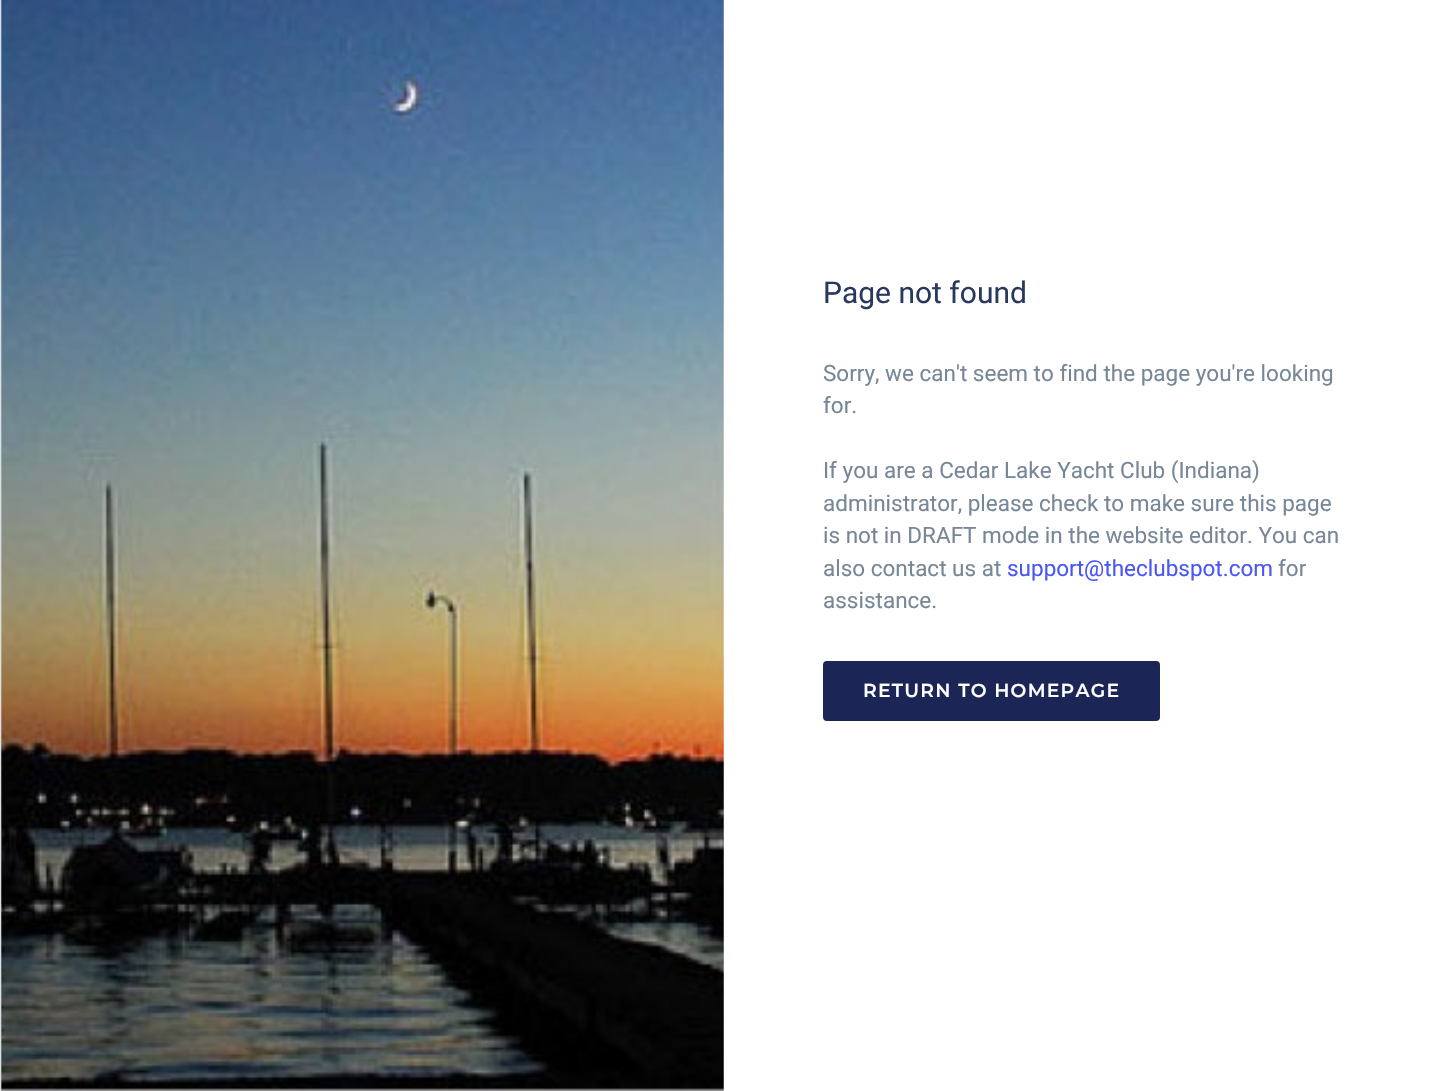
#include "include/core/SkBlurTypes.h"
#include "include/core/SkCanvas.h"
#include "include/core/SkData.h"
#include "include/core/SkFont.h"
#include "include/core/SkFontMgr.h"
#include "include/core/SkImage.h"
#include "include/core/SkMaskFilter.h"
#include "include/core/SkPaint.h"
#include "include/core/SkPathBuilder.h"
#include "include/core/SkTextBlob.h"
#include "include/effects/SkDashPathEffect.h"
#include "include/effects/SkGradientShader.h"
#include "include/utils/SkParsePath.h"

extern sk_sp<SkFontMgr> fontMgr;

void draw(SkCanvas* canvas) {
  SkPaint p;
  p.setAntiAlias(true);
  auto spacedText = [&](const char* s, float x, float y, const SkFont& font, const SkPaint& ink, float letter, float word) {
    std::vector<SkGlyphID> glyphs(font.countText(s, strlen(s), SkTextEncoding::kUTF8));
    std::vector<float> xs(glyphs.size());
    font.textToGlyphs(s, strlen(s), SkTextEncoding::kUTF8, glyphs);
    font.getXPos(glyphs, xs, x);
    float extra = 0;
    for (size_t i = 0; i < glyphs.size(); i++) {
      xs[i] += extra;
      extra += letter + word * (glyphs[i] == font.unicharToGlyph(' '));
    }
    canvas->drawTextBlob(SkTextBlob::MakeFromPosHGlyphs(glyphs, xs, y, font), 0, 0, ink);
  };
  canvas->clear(SK_ColorWHITE);
  p.setColor(SkColorSetRGB(215, 222, 228));
  canvas->drawRect(SkRect::MakeLTRB(0, 0, 1, 1091), p);
  canvas->drawImageRect(SkImages::DeferredFromEncodedData(SkData::MakeFromFileName("images/1.png")), SkRect::MakeLTRB(1, 0, 724, 1091), SkSamplingOptions());
  p.setColor(SkColorSetRGB(27, 37, 86));
  canvas->drawRoundRect(SkRect::MakeLTRB(824.5f, 662.5f, 1158.5f, 719.5f), 2.5f, 2.5f, p);
  p.setStyle(SkPaint::kStroke_Style);
  p.setStrokeWidth(3);
  canvas->drawRoundRect(SkRect::MakeLTRB(824.5f, 662.5f, 1158.5f, 719.5f), 2.5f, 2.5f, p);
  SkFont font1(fontMgr->matchFamilyStyle("Roboto", SkFontStyle::Normal()), 30);
  font1.setSubpixel(true);
  p.setStyle(SkPaint::kFill_Style);
  p.setColor(SkColorSetRGB(42, 55, 95));
  canvas->drawString("Page not found", 823, 303, font1, p);
  SkFont font2(fontMgr->matchFamilyStyle("Roboto", SkFontStyle::Normal()), 22.5f);
  font2.setSubpixel(true);
  p.setColor(SkColorSetRGB(119, 135, 152));
  canvas->drawString("Sorry, we can't seem to find the page you're looking", 823, 381, font2, p);
  canvas->drawString("for.", 823, 413, font2, p);
  canvas->drawString("If you are a Cedar Lake Yacht Club (Indiana)", 823, 478, font2, p);
  canvas->drawString("administrator, please check to make sure this page", 823, 511, font2, p);
  canvas->drawString("is not in DRAFT mode in the website editor. You can", 823, 543, font2, p);
  canvas->drawString("also contact us at", 823, 576, font2, p);
  p.setColor(SkColorSetRGB(74, 86, 248));
  canvas->drawString("support@theclubspot.com", 1007, 576, font2, p);
  p.setColor(SkColorSetRGB(119, 135, 152));
  canvas->drawString("for", 1278, 576, font2, p);
  canvas->drawString("assistance.", 823, 608, font2, p);
  SkFont font3(fontMgr->matchFamilyStyle("Montserrat", SkFontStyle(600, SkFontStyle::kNormal_Width, SkFontStyle::kUpright_Slant)), 18.75f);
  font3.setSubpixel(true);
  p.setColor(SK_ColorWHITE);
  spacedText("RETURN TO HOMEPAGE", 863, 697, font3, p, 1.25f, 0);
}
